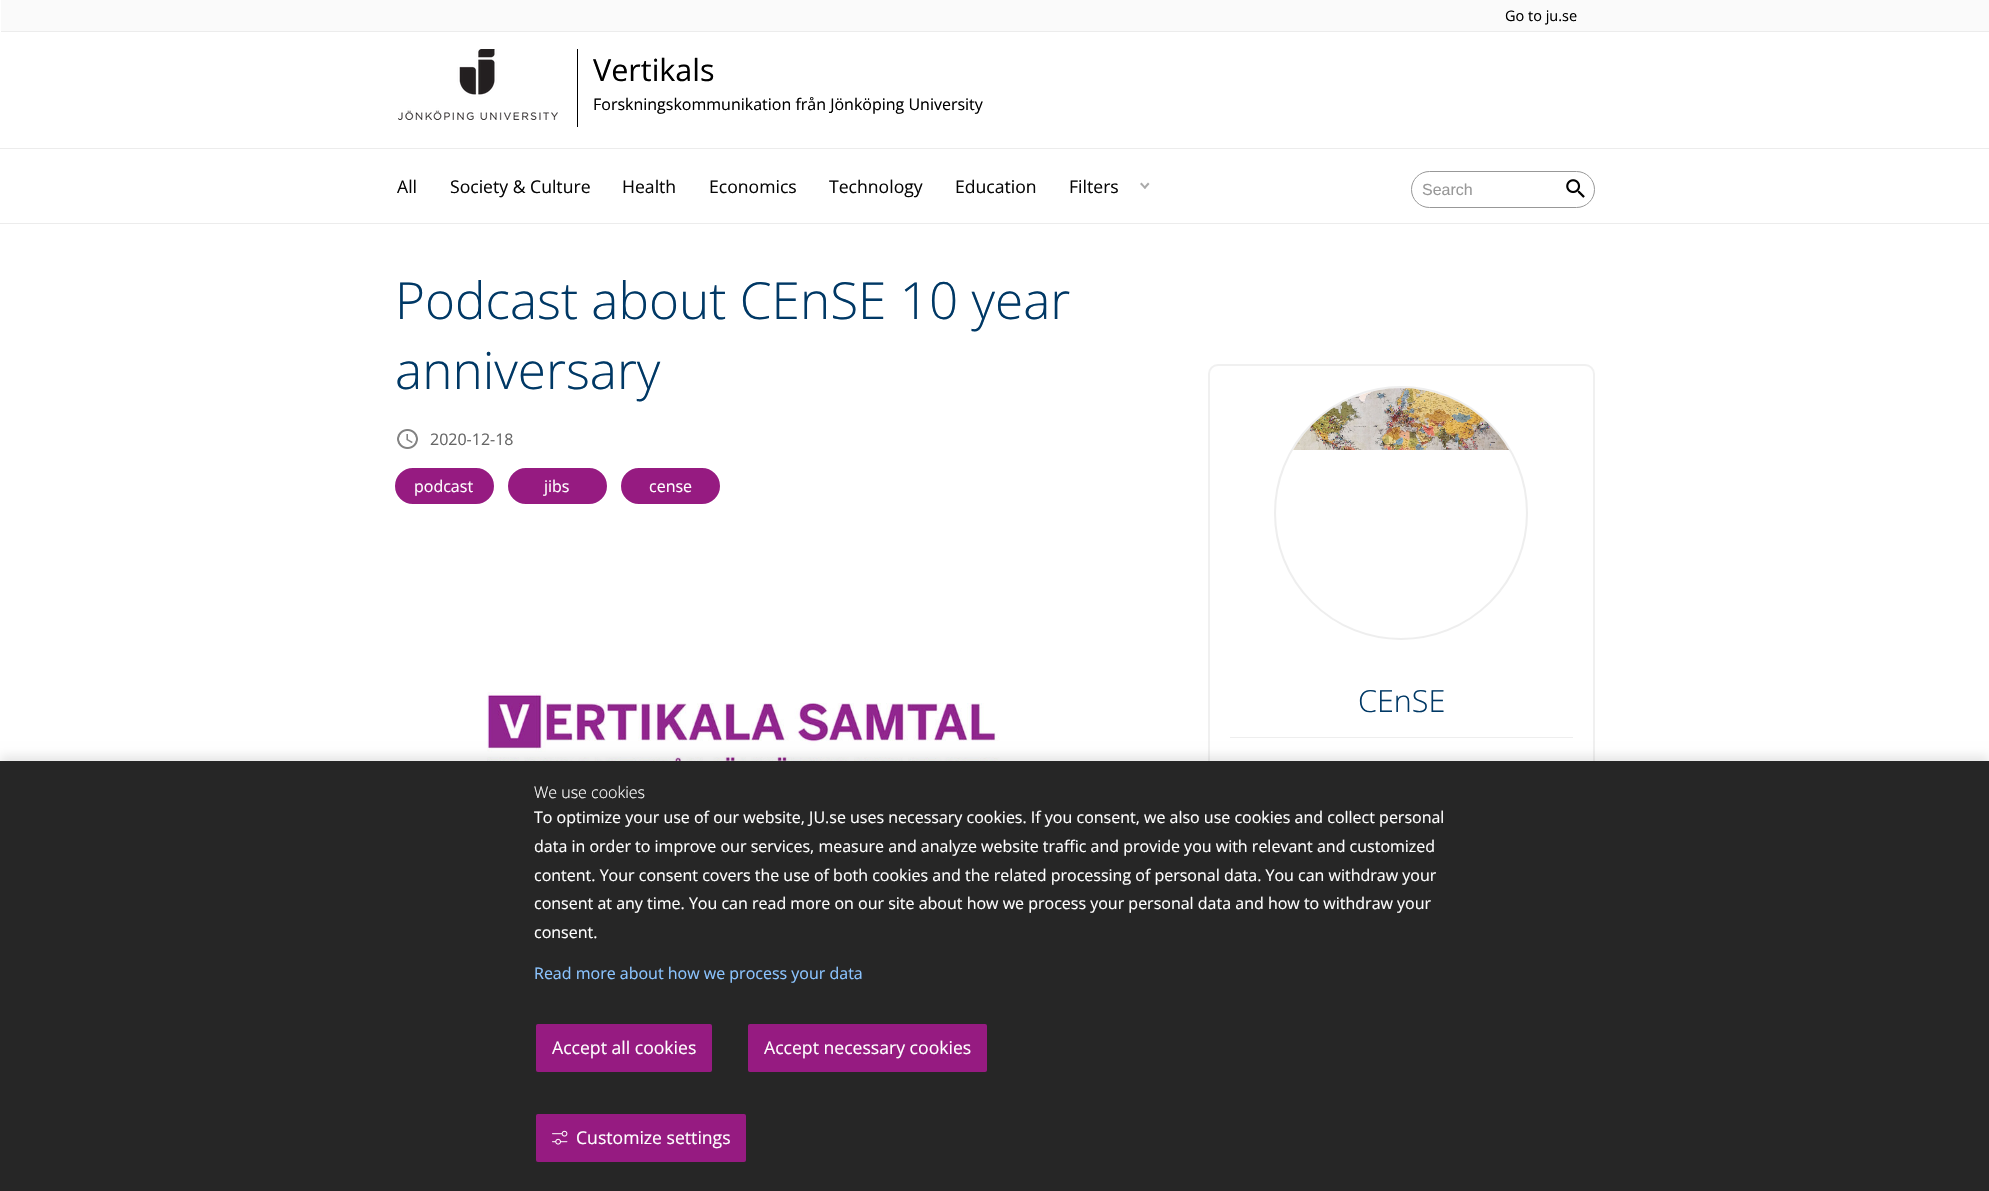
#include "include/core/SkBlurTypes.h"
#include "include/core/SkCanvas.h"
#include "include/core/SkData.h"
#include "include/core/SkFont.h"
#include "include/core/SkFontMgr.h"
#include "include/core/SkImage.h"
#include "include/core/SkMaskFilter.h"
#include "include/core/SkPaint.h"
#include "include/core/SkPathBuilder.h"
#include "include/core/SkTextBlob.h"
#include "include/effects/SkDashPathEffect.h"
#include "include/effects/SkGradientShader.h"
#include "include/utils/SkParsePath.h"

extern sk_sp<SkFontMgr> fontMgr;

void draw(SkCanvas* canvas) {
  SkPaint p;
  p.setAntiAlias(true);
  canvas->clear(SK_ColorWHITE);
  p.setColor(SkColorSetRGB(236, 236, 236));
  canvas->drawRect(SkRect::MakeLTRB(0, 148, 1989, 149), p);
  p.setColor(SkColorSetRGB(250, 250, 250));
  canvas->drawRect(SkRect::MakeLTRB(1, 0, 1989, 31), p);
  p.setColor(SkColorSetRGB(236, 236, 236));
  canvas->drawRect(SkRect::MakeLTRB(1, 31, 1989, 32), p);
  p.setColor(SK_ColorBLACK);
  canvas->drawRect(SkRect::MakeLTRB(577, 49, 578, 127), p);
  canvas->drawImageRect(SkImages::DeferredFromEncodedData(SkData::MakeFromFileName("images/1.png")), SkRect::MakeLTRB(398, 49, 558, 120), SkSamplingOptions());
  p.setColor(SkColorSetRGB(236, 236, 236));
  canvas->drawRect(SkRect::MakeLTRB(0, 223, 1989, 224), p);
  p.setColor(SkColorSetRGB(170, 170, 170));
  canvas->drawPath(SkPathBuilder().moveTo(1143.5f, 187.5f).lineTo(1148, 182.5f).lineTo(1149.5f, 184).lineTo(1145, 189).close().detach(), p);
  canvas->drawPath(SkPathBuilder().moveTo(1140, 184).lineTo(1141.5f, 182.5f).lineTo(1146, 187.5f).lineTo(1145, 189).close().detach(), p);
  p.setStyle(SkPaint::kStroke_Style);
  p.setStrokeWidth(1);
  p.setColor(SkColorSetRGB(152, 152, 152));
  canvas->drawRoundRect(SkRect::MakeLTRB(1411.5f, 171.5f, 1594.5f, 207.5f), 18, 18, p);
  canvas->drawImageRect(SkImages::DeferredFromEncodedData(SkData::MakeFromFileName("images/2.png")), SkRect::MakeLTRB(1566, 179, 1585, 198), SkSamplingOptions());
  canvas->drawImageRect(SkImages::DeferredFromEncodedData(SkData::MakeFromFileName("images/3.png")), SkRect::MakeLTRB(397, 429, 418, 449), SkSamplingOptions());
  p.setStyle(SkPaint::kFill_Style);
  p.setColor(SkColorSetRGB(150, 27, 129));
  canvas->drawRoundRect(SkRect::MakeLTRB(396, 469, 493, 503), 17, 17, p);
  p.setStyle(SkPaint::kStroke_Style);
  p.setStrokeWidth(2);
  canvas->drawRoundRect(SkRect::MakeLTRB(396, 469, 493, 503), 17, 17, p);
  p.setStyle(SkPaint::kFill_Style);
  canvas->drawRoundRect(SkRect::MakeLTRB(509, 469, 606, 503), 17, 17, p);
  p.setStyle(SkPaint::kStroke_Style);
  canvas->drawRoundRect(SkRect::MakeLTRB(509, 469, 606, 503), 17, 17, p);
  p.setStyle(SkPaint::kFill_Style);
  canvas->drawRoundRect(SkRect::MakeLTRB(622, 469, 719, 503), 17, 17, p);
  p.setStyle(SkPaint::kStroke_Style);
  canvas->drawRoundRect(SkRect::MakeLTRB(622, 469, 719, 503), 17, 17, p);
  canvas->drawImageRect(SkImages::DeferredFromEncodedData(SkData::MakeFromFileName("images/4.png")), SkRect::MakeLTRB(487, 692, 1000, 761), SkSamplingOptions());
  p.setColor(SkColorSetRGB(240, 240, 240));
  canvas->drawRoundRect(SkRect::MakeLTRB(1209, 365, 1594, 815), 9, 9, p);
  p.setColor(SkColorSetRGB(238, 238, 238));
  canvas->drawCircle(1401, 513, 126, p);
  canvas->drawImageRect(SkImages::DeferredFromEncodedData(SkData::MakeFromFileName("images/5.png")), SkRect::MakeLTRB(1293, 388, 1509, 450), SkSamplingOptions());
  p.setStyle(SkPaint::kFill_Style);
  canvas->drawRect(SkRect::MakeLTRB(1230, 737, 1573, 738), p);
  p.setColor(SkColorSetARGB(26, 0, 0, 0));
  p.setMaskFilter(SkMaskFilter::MakeBlur(kNormal_SkBlurStyle, 5));
  canvas->drawRect(SkRect::MakeLTRB(0, 756, 1989, 1186), p);
  p.setMaskFilter(nullptr);
  p.setColor(SkColorSetRGB(38, 38, 38));
  canvas->drawRect(SkRect::MakeLTRB(0, 761, 1989, 1191), p);
  p.setColor(SkColorSetRGB(150, 27, 129));
  canvas->drawRoundRect(SkRect::MakeLTRB(536, 1024, 712, 1072), 2, 2, p);
  canvas->drawRoundRect(SkRect::MakeLTRB(748, 1024, 987, 1072), 2, 2, p);
  canvas->drawRoundRect(SkRect::MakeLTRB(536, 1114, 746, 1162), 2, 2, p);
  canvas->drawImageRect(SkImages::DeferredFromEncodedData(SkData::MakeFromFileName("images/6.png")), SkRect::MakeLTRB(552, 1130, 568, 1145), SkSamplingOptions());
  SkFont font1(fontMgr->matchFamilyStyle("Open Sans", SkFontStyle::Normal()), 14.5f);
  font1.setSubpixel(true);
  p.setColor(SK_ColorBLACK);
  canvas->drawString("Go to ju.se", 1505, 21, font1, p);
  SkFont font2(fontMgr->matchFamilyStyle("Open Sans", SkFontStyle::Normal()), 30.5f);
  font2.setSubpixel(true);
  canvas->drawString("Vertikals", 593, 81, font2, p);
  SkFont font3(fontMgr->matchFamilyStyle("Open Sans", SkFontStyle::Normal()), 16);
  font3.setSubpixel(true);
  canvas->drawString("Forskningskommunikation från Jönköping University", 593, 110, font3, p);
  SkFont font4(fontMgr->matchFamilyStyle("Open Sans", SkFontStyle::Normal()), 17.6f);
  font4.setSubpixel(true);
  p.setColor(SkColorSetRGB(7, 7, 7));
  canvas->drawString("All", 397, 193, font4, p);
  canvas->drawString("Society & Culture", 450, 193, font4, p);
  canvas->drawString("Health", 622, 193, font4, p);
  canvas->drawString("Economics", 709, 193, font4, p);
  canvas->drawString("Technology", 829, 193, font4, p);
  canvas->drawString("Education", 955, 193, font4, p);
  canvas->drawString("Filters", 1069, 193, font4, p);
  SkFont font5(fontMgr->matchFamilyStyle("Liberation Sans", SkFontStyle::Normal()), 16);
  font5.setSubpixel(true);
  p.setColor(SkColorSetRGB(152, 152, 152));
  canvas->drawString("Search", 1422, 195, font5, p);
  SkFont font6(fontMgr->matchFamilyStyle("Open Sans", SkFontStyle(300, SkFontStyle::kNormal_Width, SkFontStyle::kUpright_Slant)), 51.25f);
  font6.setSubpixel(true);
  p.setColor(SkColorSetRGB(0, 56, 101));
  canvas->drawString("Podcast about CEnSE 10 year", 395, 319, font6, p);
  canvas->drawString("anniversary", 395, 389, font6, p);
  p.setColor(SkColorSetRGB(102, 102, 102));
  canvas->drawString("2020-12-18", 430, 445, font3, p);
  p.setColor(SK_ColorWHITE);
  canvas->drawString("podcast", 414, 492, font3, p);
  canvas->drawString("jibs", 544, 492, font3, p);
  canvas->drawString("cense", 649, 492, font3, p);
  SkFont font7(fontMgr->matchFamilyStyle("Open Sans", SkFontStyle(300, SkFontStyle::kNormal_Width, SkFontStyle::kUpright_Slant)), 30.5f);
  font7.setSubpixel(true);
  p.setColor(SkColorSetRGB(0, 56, 101));
  canvas->drawString("CEnSE", 1358, 712, font7, p);
  SkFont font8(fontMgr->matchFamilyStyle("Open Sans", SkFontStyle(300, SkFontStyle::kNormal_Width, SkFontStyle::kUpright_Slant)), 16);
  font8.setSubpixel(true);
  p.setColor(SK_ColorWHITE);
  canvas->drawString("We use cookies", 534, 798, font8, p);
  canvas->drawString("To optimize your use of our website, JU.se uses necessary cookies. If you consent, we also use cookies and collect personal", 534, 823, font3, p);
  canvas->drawString("data in order to improve our services, measure and analyze website traffic and provide you with relevant and customized", 534, 852, font3, p);
  canvas->drawString("content. Your consent covers the use of both cookies and the related processing of personal data. You can withdraw your", 534, 881, font3, p);
  canvas->drawString("consent at any time. You can read more on our site about how we process your personal data and how to withdraw your", 534, 909, font3, p);
  canvas->drawString("consent.", 534, 938, font3, p);
  p.setColor(SkColorSetRGB(139, 196, 255));
  canvas->drawString("Read more about how we process your data", 534, 979, font3, p);
  p.setColor(SK_ColorWHITE);
  canvas->drawString("Accept all cookies", 552, 1054, font4, p);
  canvas->drawString("Accept necessary cookies", 764, 1054, font4, p);
  canvas->drawString("Customize settings", 576, 1144, font4, p);
}
